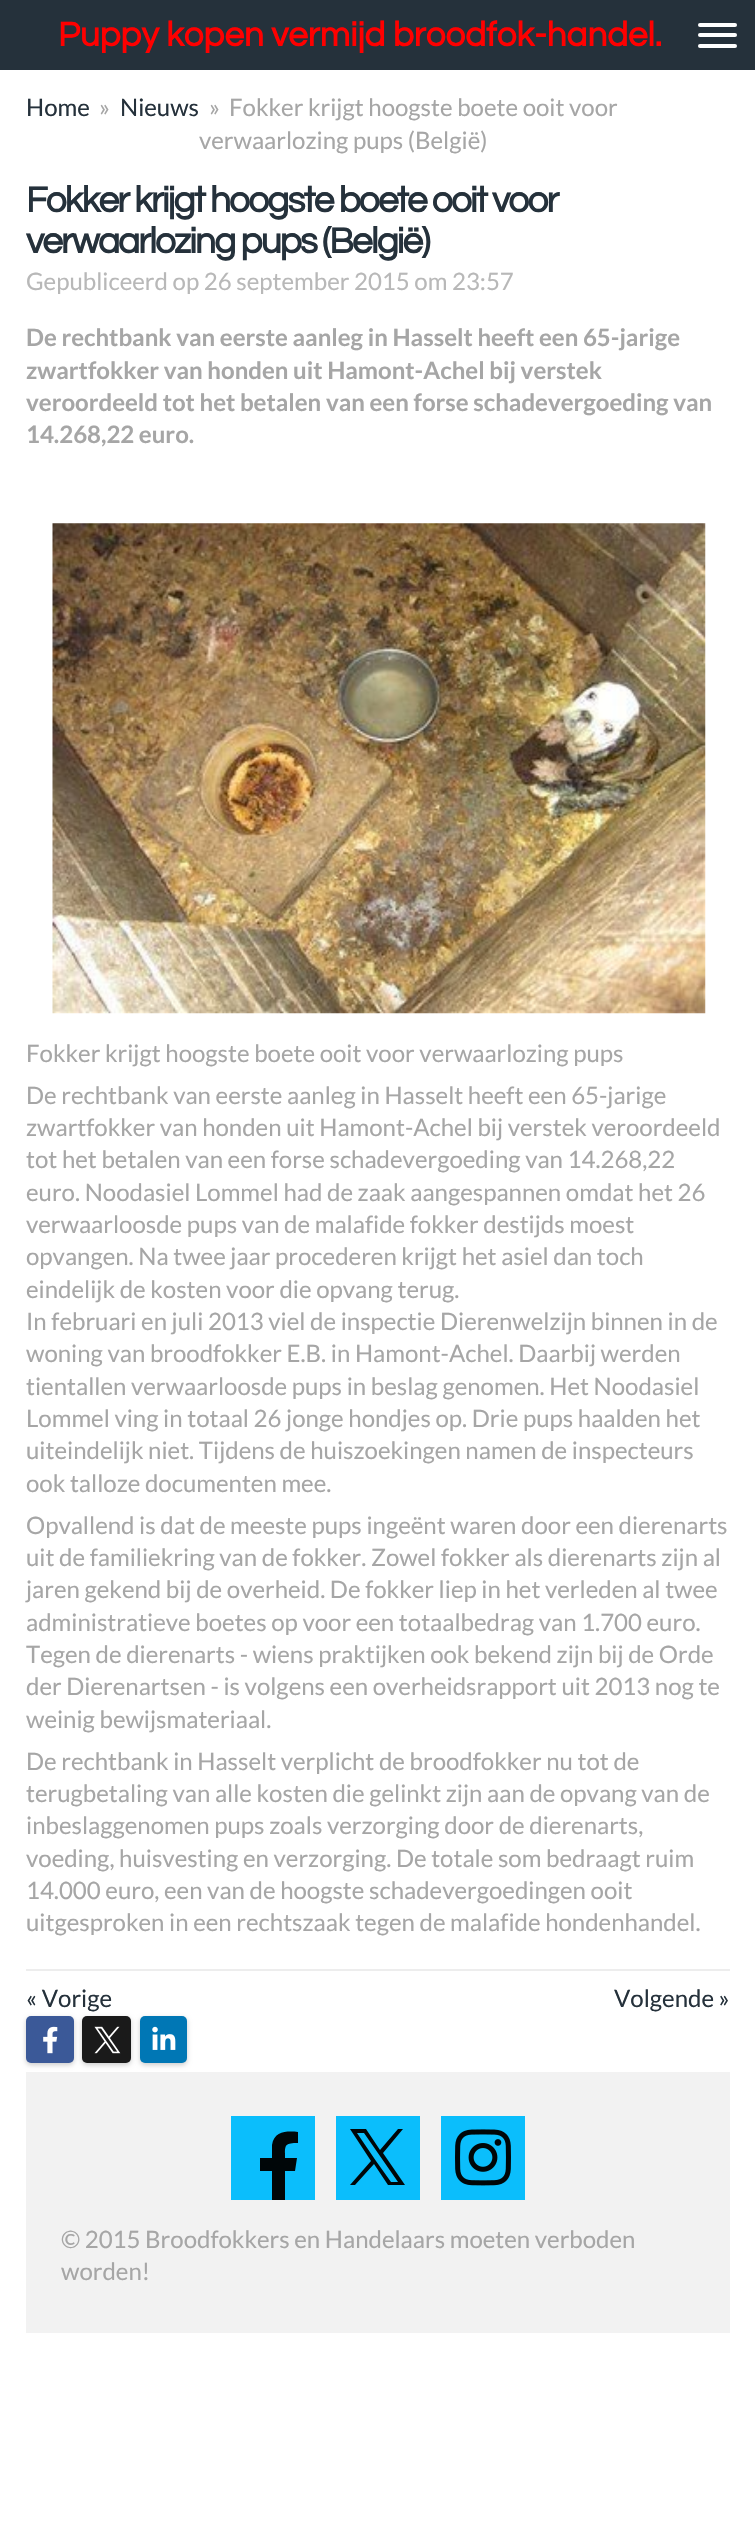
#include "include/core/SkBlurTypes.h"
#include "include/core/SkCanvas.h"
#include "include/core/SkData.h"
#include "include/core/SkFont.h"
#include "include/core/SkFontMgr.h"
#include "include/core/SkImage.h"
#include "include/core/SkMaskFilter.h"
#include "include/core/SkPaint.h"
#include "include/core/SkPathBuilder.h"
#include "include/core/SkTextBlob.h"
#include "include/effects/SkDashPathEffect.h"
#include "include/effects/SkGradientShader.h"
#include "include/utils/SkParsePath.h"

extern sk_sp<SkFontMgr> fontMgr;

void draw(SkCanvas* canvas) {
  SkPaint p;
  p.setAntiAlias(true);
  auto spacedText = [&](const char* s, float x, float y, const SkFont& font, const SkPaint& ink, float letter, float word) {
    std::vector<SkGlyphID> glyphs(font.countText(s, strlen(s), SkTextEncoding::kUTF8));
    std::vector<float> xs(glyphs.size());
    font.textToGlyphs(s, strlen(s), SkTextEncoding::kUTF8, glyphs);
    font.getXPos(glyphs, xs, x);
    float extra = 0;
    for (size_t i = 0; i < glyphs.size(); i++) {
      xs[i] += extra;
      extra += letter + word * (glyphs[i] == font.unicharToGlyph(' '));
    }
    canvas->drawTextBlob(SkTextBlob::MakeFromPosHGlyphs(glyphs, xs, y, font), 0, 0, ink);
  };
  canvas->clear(SK_ColorWHITE);
  p.setColor(SkColorSetRGB(37, 49, 59));
  canvas->drawRect(SkRect::MakeLTRB(0, 0, 40, 70), p);
  canvas->drawRect(SkRect::MakeLTRB(40, 0, 755, 70), p);
  p.setColor(SK_ColorWHITE);
  canvas->drawRoundRect(SkRect::MakeLTRB(698, 33, 737, 37), 2, 2, p);
  canvas->drawRoundRect(SkRect::MakeLTRB(698, 23, 737, 27), 2, 2, p);
  canvas->drawRoundRect(SkRect::MakeLTRB(698, 44, 737, 48), 2, 2, p);
  canvas->drawImageRect(SkImages::DeferredFromEncodedData(SkData::MakeFromFileName("images/1.png")), SkRect::MakeLTRB(52, 523, 706, 1014), SkSamplingOptions());
  p.setColor(SkColorSetRGB(237, 237, 237));
  canvas->drawRect(SkRect::MakeLTRB(26, 1969, 730, 1971), p);
  p.setColor(SkColorSetARGB(51, 0, 0, 0));
  p.setMaskFilter(SkMaskFilter::MakeBlur(kNormal_SkBlurStyle, 2.5f));
  canvas->drawRoundRect(SkRect::MakeLTRB(26, 2018, 74, 2065), 5, 5, p);
  p.setMaskFilter(nullptr);
  p.setColor(SkColorSetRGB(59, 89, 152));
  canvas->drawRoundRect(SkRect::MakeLTRB(26, 2016, 74, 2063), 5, 5, p);
  canvas->drawImageRect(SkImages::DeferredFromEncodedData(SkData::MakeFromFileName("images/2.png")), SkRect::MakeLTRB(43, 2026, 58, 2054), SkSamplingOptions());
  p.setColor(SkColorSetARGB(51, 0, 0, 0));
  p.setMaskFilter(SkMaskFilter::MakeBlur(kNormal_SkBlurStyle, 2.5f));
  canvas->drawRoundRect(SkRect::MakeLTRB(82, 2018, 131, 2065), 5, 5, p);
  p.setMaskFilter(nullptr);
  p.setColor(SkColorSetRGB(26, 26, 26));
  canvas->drawRoundRect(SkRect::MakeLTRB(82, 2016, 131, 2063), 5, 5, p);
  canvas->drawImageRect(SkImages::DeferredFromEncodedData(SkData::MakeFromFileName("images/3.png")), SkRect::MakeLTRB(94, 2026, 121, 2054), SkSamplingOptions());
  p.setColor(SkColorSetARGB(51, 0, 0, 0));
  p.setMaskFilter(SkMaskFilter::MakeBlur(kNormal_SkBlurStyle, 2.5f));
  canvas->drawRoundRect(SkRect::MakeLTRB(140, 2018, 187, 2065), 5, 5, p);
  p.setMaskFilter(nullptr);
  p.setColor(SkColorSetRGB(0, 119, 181));
  canvas->drawRoundRect(SkRect::MakeLTRB(140, 2016, 187, 2063), 5, 5, p);
  canvas->drawImageRect(SkImages::DeferredFromEncodedData(SkData::MakeFromFileName("images/4.png")), SkRect::MakeLTRB(152, 2026, 176, 2050), SkSamplingOptions());
  p.setColor(SkColorSetRGB(242, 242, 242));
  canvas->drawRect(SkRect::MakeLTRB(26, 2072, 730, 2333), p);
  p.setColor(SkColorSetRGB(11, 190, 252));
  canvas->drawRect(SkRect::MakeLTRB(231, 2116, 315, 2200), p);
  canvas->save();
  canvas->clipRect(SkRect::MakeLTRB(231, 2116, 315, 2200));
  p.setColor(SkColorSetRGB(0, 6, 8));
  canvas->drawPath(SkPathBuilder().moveTo(295, 2171).lineTo(297, 2158).lineTo(285, 2158).cubicTo(285, 2145, 284, 2143, 298, 2143).lineTo(298, 2132).cubicTo(287, 2131, 274, 2131, 272, 2145).lineTo(272, 2158).lineTo(260, 2158).lineTo(260, 2171).lineTo(272, 2171).lineTo(272, 2202).lineTo(285, 2202).lineTo(285, 2171).close().detach(), p);
  canvas->restore();
  p.setColor(SkColorSetRGB(11, 190, 252));
  canvas->drawRect(SkRect::MakeLTRB(336, 2116, 420, 2200), p);
  p.setColor(SkColorSetRGB(0, 6, 8));
  canvas->drawPath(SkPathBuilder().moveTo(383, 2153).lineTo(403, 2129).lineTo(398, 2129).lineTo(380, 2150).lineTo(366, 2129).lineTo(350, 2129).lineTo(371, 2161).lineTo(350, 2185).lineTo(355, 2185).lineTo(374, 2164).lineTo(388, 2185).lineTo(405, 2185).close().moveTo(376, 2161).lineTo(357, 2133).lineTo(364, 2133).lineTo(398, 2182).lineTo(391, 2182).close().detach(), p);
  p.setColor(SkColorSetRGB(11, 190, 252));
  canvas->drawRect(SkRect::MakeLTRB(441, 2116, 525, 2200), p);
  canvas->drawImageRect(SkImages::DeferredFromEncodedData(SkData::MakeFromFileName("images/5.png")), SkRect::MakeLTRB(455, 2129, 511, 2186), SkSamplingOptions());
  SkFont font1(fontMgr->matchFamilyStyle("Questrial", SkFontStyle::Bold()), 35);
  font1.setSubpixel(true);
  p.setColor(SkColorSetRGB(255, 0, 0));
  canvas->drawString("Puppy kopen vermijd broodfok-handel.", 58, 46, font1, p);
  SkFont font2(fontMgr->matchFamilyStyle("Lato", SkFontStyle::Normal()), 24);
  font2.setSubpixel(true);
  p.setColor(SkColorSetRGB(37, 49, 59));
  canvas->drawString("Home", 26, 116, font2, p);
  p.setColor(SkColorSetRGB(166, 166, 166));
  canvas->drawString("»", 99, 116, font2, p);
  p.setColor(SkColorSetRGB(37, 49, 59));
  canvas->drawString("Nieuws", 120, 116, font2, p);
  p.setColor(SkColorSetRGB(166, 166, 166));
  canvas->drawString("»", 209, 116, font2, p);
  canvas->drawString("Fokker krijgt hoogste boete ooit voor", 229, 116, font2, p);
  canvas->drawString("verwaarlozing pups (België)", 199, 149, font2, p);
  SkFont font3(fontMgr->matchFamilyStyle("Questrial", SkFontStyle::Bold()), 37.1f);
  font3.setSubpixel(true);
  p.setColor(SkColorSetRGB(37, 49, 59));
  spacedText("Fokker krijgt hoogste boete ooit voor", 26, 212, font3, p, -1.85f, 0);
  spacedText("verwaarlozing pups (België)", 26, 253, font3, p, -1.85f, 0);
  p.setColor(SkColorSetRGB(184, 184, 184));
  canvas->drawString("Gepubliceerd op 26 september 2015 om 23:57", 26, 290, font2, p);
  SkFont font4(fontMgr->matchFamilyStyle("Lato", SkFontStyle::Bold()), 24);
  font4.setSubpixel(true);
  p.setColor(SkColorSetRGB(166, 166, 166));
  canvas->drawString("De rechtbank van eerste aanleg in Hasselt heeft een 65-jarige", 26, 346, font4, p);
  canvas->drawString("zwartfokker van honden uit Hamont-Achel bij verstek", 26, 379, font4, p);
  canvas->drawString("veroordeeld tot het betalen van een forse schadevergoeding van", 26, 411, font4, p);
  canvas->drawString("14.268,22 euro.", 26, 443, font4, p);
  canvas->drawString("Fokker krijgt hoogste boete ooit voor verwaarlozing pups", 26, 1062, font2, p);
  canvas->drawString("De rechtbank van eerste aanleg in Hasselt heeft een 65-jarige", 26, 1104, font2, p);
  canvas->drawString("zwartfokker van honden uit Hamont-Achel bij verstek veroordeeld", 26, 1136, font2, p);
  canvas->drawString("tot het betalen van een forse schadevergoeding van 14.268,22", 26, 1168, font2, p);
  canvas->drawString("euro. Noodasiel Lommel had de zaak aangespannen omdat het 26", 26, 1201, font2, p);
  canvas->drawString("verwaarloosde pups van de malafide fokker destijds moest", 26, 1233, font2, p);
  canvas->drawString("opvangen. Na twee jaar procederen krijgt het asiel dan toch", 26, 1265, font2, p);
  canvas->drawString("eindelijk de kosten voor die opvang terug.", 26, 1298, font2, p);
  canvas->drawString("In februari en juli 2013 viel de inspectie Dierenwelzijn binnen in de", 26, 1330, font2, p);
  canvas->drawString("woning van broodfokker E.B. in Hamont-Achel. Daarbij werden", 26, 1362, font2, p);
  canvas->drawString("tientallen verwaarloosde pups in beslag genomen. Het Noodasiel", 26, 1395, font2, p);
  canvas->drawString("Lommel ving in totaal 26 jonge hondjes op. Drie pups haalden het", 26, 1427, font2, p);
  canvas->drawString("uiteindelijk niet. Tijdens de huiszoekingen namen de inspecteurs", 26, 1459, font2, p);
  canvas->drawString("ook talloze documenten mee.", 26, 1492, font2, p);
  canvas->drawString("Opvallend is dat de meeste pups ingeënt waren door een dierenarts", 26, 1534, font2, p);
  canvas->drawString("uit de familiekring van de fokker. Zowel fokker als dierenarts zijn al", 26, 1566, font2, p);
  canvas->drawString("jaren gekend bij de overheid. De fokker liep in het verleden al twee", 26, 1598, font2, p);
  canvas->drawString("administratieve boetes op voor een totaalbedrag van 1.700 euro.", 26, 1631, font2, p);
  canvas->drawString("Tegen de dierenarts - wiens praktijken ook bekend zijn bij de Orde", 26, 1663, font2, p);
  canvas->drawString("der Dierenartsen - is volgens een overheidsrapport uit 2013 nog te", 26, 1695, font2, p);
  canvas->drawString("weinig bewijsmateriaal.", 26, 1728, font2, p);
  canvas->drawString("De rechtbank in Hasselt verplicht de broodfokker nu tot de", 26, 1770, font2, p);
  canvas->drawString("terugbetaling van alle kosten die gelinkt zijn aan de opvang van de", 26, 1802, font2, p);
  canvas->drawString("inbeslaggenomen pups zoals verzorging door de dierenarts,", 26, 1834, font2, p);
  canvas->drawString("voeding, huisvesting en verzorging. De totale som bedraagt ruim", 26, 1867, font2, p);
  canvas->drawString("14.000 euro, een van de hoogste schadevergoedingen ooit", 26, 1899, font2, p);
  canvas->drawString("uitgesproken in een rechtszaak tegen de malafide hondenhandel.", 26, 1931, font2, p);
  p.setColor(SkColorSetRGB(37, 49, 59));
  canvas->drawString("« Vorige", 26, 2007, font2, p);
  canvas->drawString("Volgende »", 614, 2007, font2, p);
  p.setColor(SkColorSetRGB(166, 166, 166));
  canvas->drawString("© 2015 Broodfokkers en Handelaars moeten verboden", 61, 2248, font2, p);
  canvas->drawString("worden!", 61, 2280, font2, p);
}
